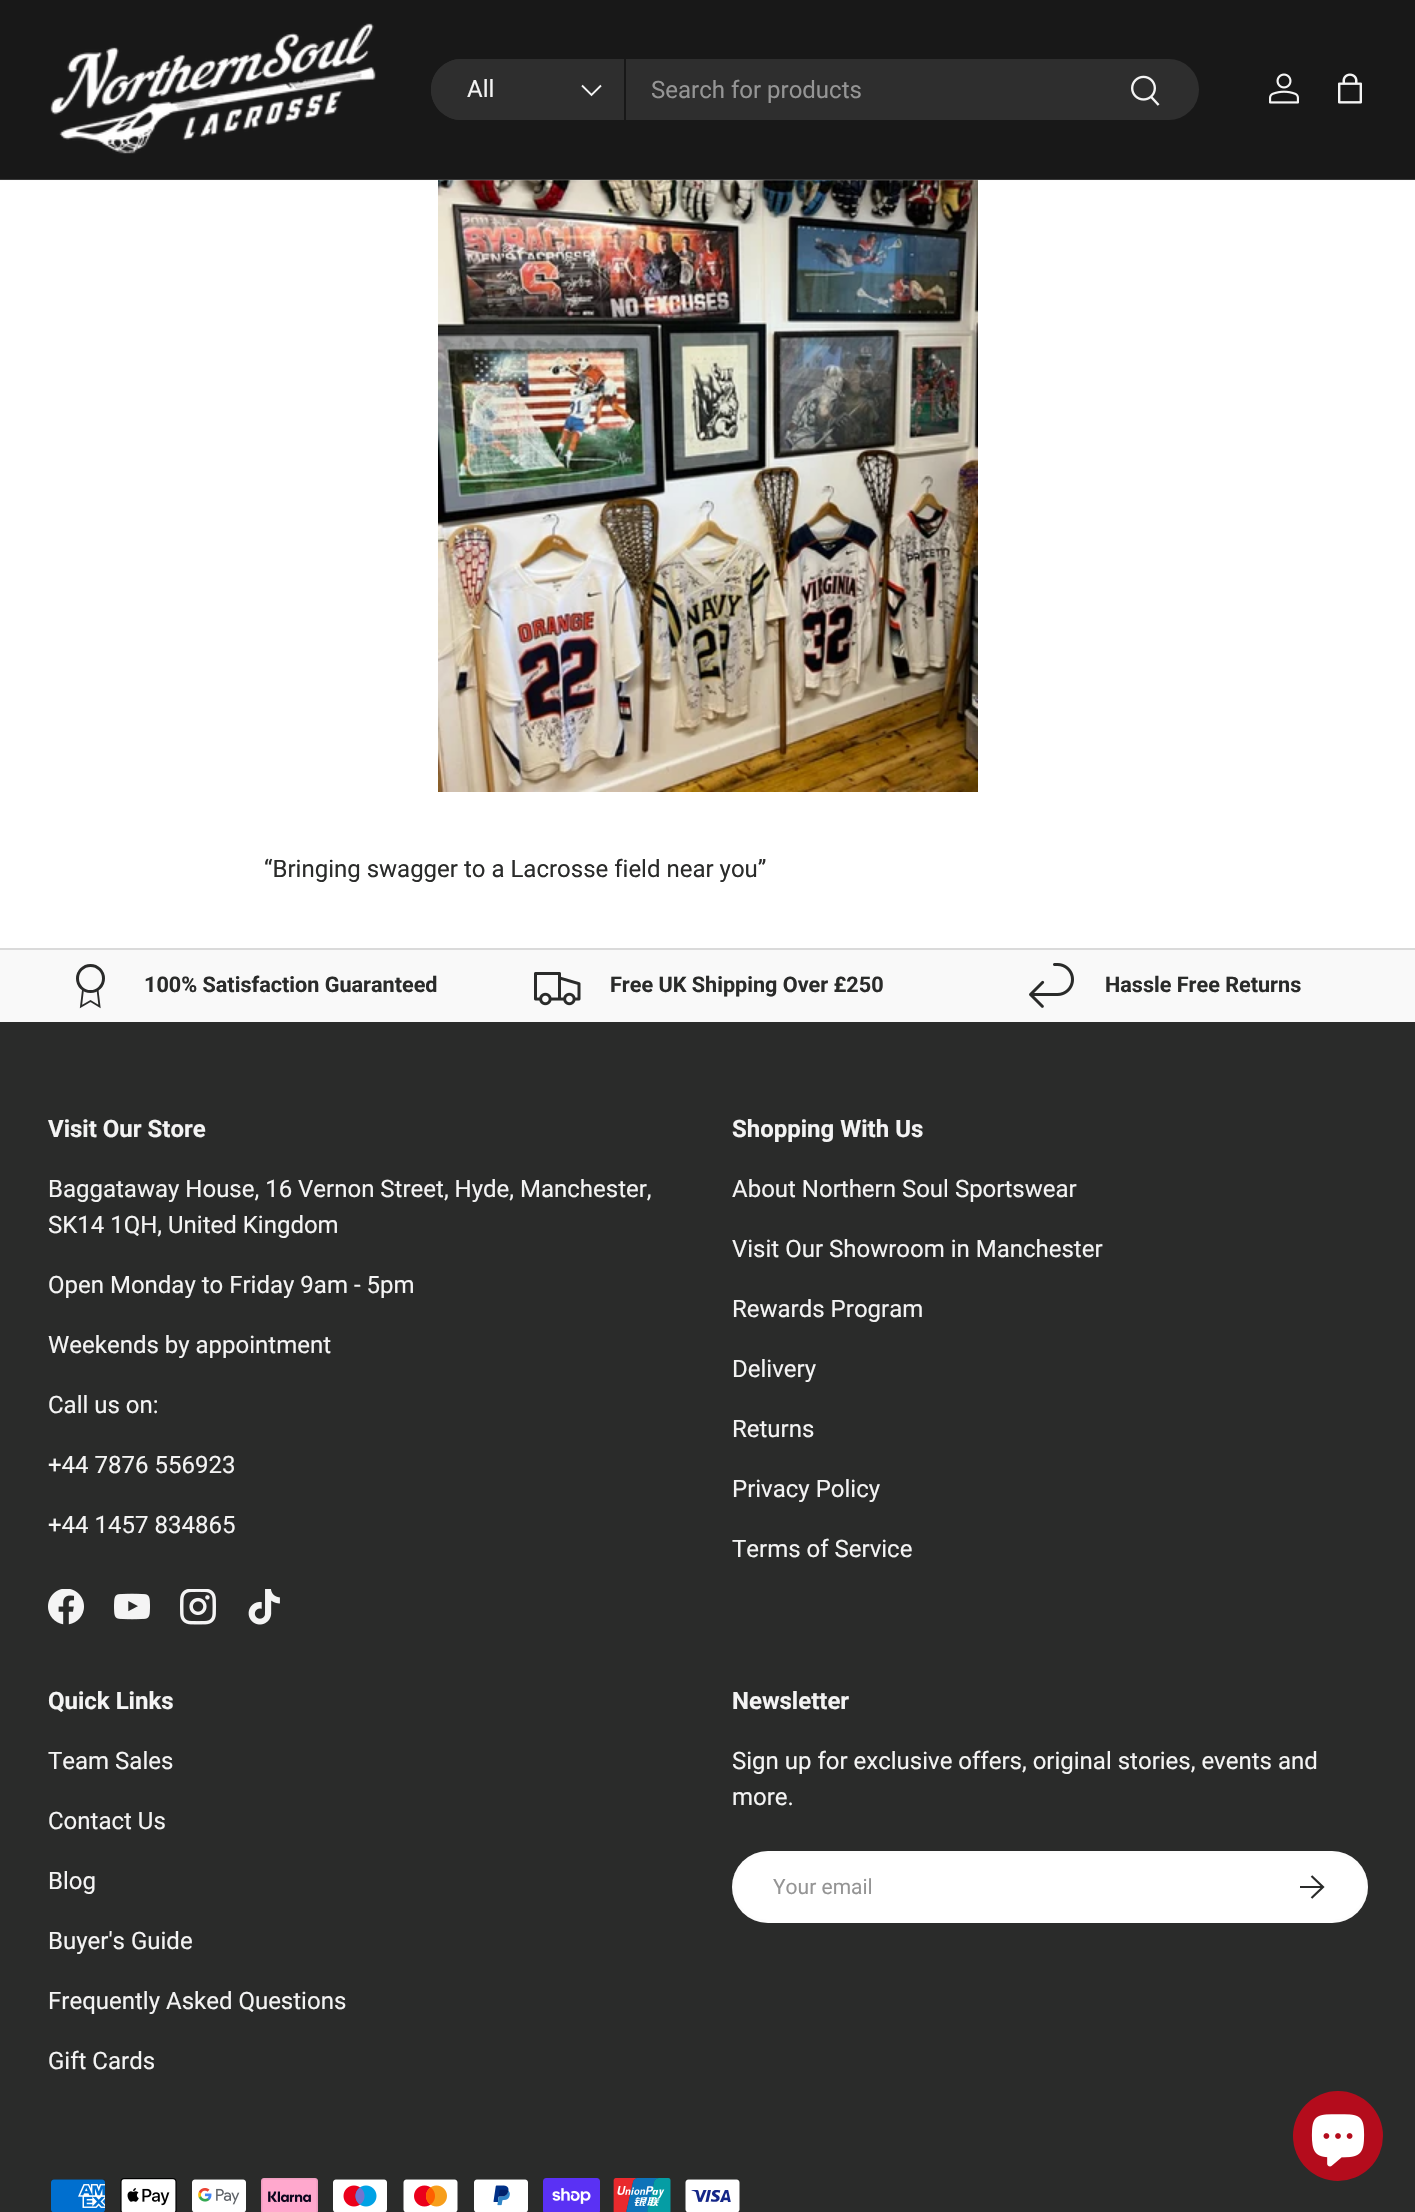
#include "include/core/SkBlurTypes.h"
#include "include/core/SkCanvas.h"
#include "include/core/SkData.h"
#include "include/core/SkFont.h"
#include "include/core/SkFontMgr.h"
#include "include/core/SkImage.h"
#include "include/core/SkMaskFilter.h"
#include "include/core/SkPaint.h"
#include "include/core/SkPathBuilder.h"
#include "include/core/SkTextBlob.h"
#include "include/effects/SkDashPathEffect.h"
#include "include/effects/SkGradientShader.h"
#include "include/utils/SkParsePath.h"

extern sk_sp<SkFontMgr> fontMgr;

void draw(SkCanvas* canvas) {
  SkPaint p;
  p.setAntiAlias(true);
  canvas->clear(SK_ColorWHITE);
  p.setColor(SkColorSetRGB(24, 24, 24));
  canvas->drawRect(SkRect::MakeLTRB(0, 0, 1415, 180), p);
  canvas->drawImageRect(SkImages::DeferredFromEncodedData(SkData::MakeFromFileName("images/5.png")), SkRect::MakeLTRB(438, 180, 978, 792), SkSamplingOptions());
  p.setColor(SkColorSetARGB(38, 244, 244, 244));
  canvas->drawRect(SkRect::MakeLTRB(0, 179, 1415, 181), p);
  canvas->drawImageRect(SkImages::DeferredFromEncodedData(SkData::MakeFromFileName("images/1.png")), SkRect::MakeLTRB(50, 23, 376, 154), SkSamplingOptions());
  p.setColor(SkColorSetRGB(46, 46, 46));
  canvas->drawRoundRect(SkRect::MakeLTRB(431, 59, 1199, 120), 30.5f, 30.5f, p);
  canvas->drawPath(SkPathBuilder().moveTo(461.5f, 59).lineTo(626, 59).lineTo(626, 120).lineTo(461.5f, 120).cubicTo(444.5f, 120, 431, 106.5f, 431, 89.5f).cubicTo(431, 72.5f, 444.5f, 59, 461.5f, 59).close().detach(), p);
  p.setColor(SkColorSetRGB(24, 24, 24));
  canvas->drawRect(SkRect::MakeLTRB(624, 59, 626, 120), p);
  p.setStyle(SkPaint::kStroke_Style);
  p.setStrokeWidth(1.9f);
  p.setColor(SkColorSetRGB(244, 244, 244));
  canvas->drawPath(SkPathBuilder().moveTo(601, 85.5f).lineTo(591.5f, 95).lineTo(582, 85.5f).detach(), p);
  canvas->drawImageRect(SkImages::DeferredFromEncodedData(SkData::MakeFromFileName("images/2.png")), SkRect::MakeLTRB(1131, 75, 1160, 106), SkSamplingOptions());
  canvas->drawImageRect(SkImages::DeferredFromEncodedData(SkData::MakeFromFileName("images/3.png")), SkRect::MakeLTRB(1269, 73, 1299, 104), SkSamplingOptions());
  canvas->drawImageRect(SkImages::DeferredFromEncodedData(SkData::MakeFromFileName("images/4.png")), SkRect::MakeLTRB(1338, 73, 1362, 104), SkSamplingOptions());
  p.setStyle(SkPaint::kFill_Style);
  p.setColor(SkColorSetRGB(249, 249, 249));
  canvas->drawRect(SkRect::MakeLTRB(0, 950, 1415, 1022), p);
  p.setColor(SkColorSetRGB(218, 218, 218));
  canvas->drawRect(SkRect::MakeLTRB(0, 948, 1415, 950), p);
  p.setStyle(SkPaint::kStroke_Style);
  p.setStrokeWidth(3);
  p.setColor(SkColorSetRGB(42, 43, 42));
  canvas->drawCircle(90.5f, 978.5f, 13, p);
  p.setStrokeWidth(1.9f);
  canvas->drawPath(SkPathBuilder().moveTo(83, 989.5f).lineTo(81, 1006.5f).lineTo(90.5f, 1001).lineTo(99.5f, 1006.5f).lineTo(97.5f, 989.5f).detach(), p);
  canvas->drawImageRect(SkImages::DeferredFromEncodedData(SkData::MakeFromFileName("images/6.png")), SkRect::MakeLTRB(534, 972, 581, 1006), SkSamplingOptions());
  canvas->drawImageRect(SkImages::DeferredFromEncodedData(SkData::MakeFromFileName("images/7.png")), SkRect::MakeLTRB(1029, 963, 1074, 1008), SkSamplingOptions());
  p.setStyle(SkPaint::kFill_Style);
  canvas->drawRect(SkRect::MakeLTRB(0, 1022, 1415, 2212), p);
  canvas->drawImageRect(SkImages::DeferredFromEncodedData(SkData::MakeFromFileName("images/8.png")), SkRect::MakeLTRB(48, 1589, 84, 1625), SkSamplingOptions());
  canvas->drawImageRect(SkImages::DeferredFromEncodedData(SkData::MakeFromFileName("images/9.png")), SkRect::MakeLTRB(114, 1593, 150, 1620), SkSamplingOptions());
  canvas->drawImageRect(SkImages::DeferredFromEncodedData(SkData::MakeFromFileName("images/10.png")), SkRect::MakeLTRB(180, 1589, 216, 1625), SkSamplingOptions());
  canvas->drawImageRect(SkImages::DeferredFromEncodedData(SkData::MakeFromFileName("images/11.png")), SkRect::MakeLTRB(248, 1589, 280, 1625), SkSamplingOptions());
  p.setColor(SK_ColorWHITE);
  canvas->drawRoundRect(SkRect::MakeLTRB(732, 1851, 1368, 1923), 36, 36, p);
  p.setStyle(SkPaint::kStroke_Style);
  p.setStrokeWidth(3);
  p.setColor(SkColorSetARGB(51, 244, 244, 244));
  canvas->drawRoundRect(SkRect::MakeLTRB(733.5f, 1852.5f, 1366.5f, 1921.5f), 34.5f, 34.5f, p);
  p.setStrokeWidth(2.2f);
  p.setColor(SkColorSetRGB(42, 43, 42));
  canvas->drawPath(SkPathBuilder().moveTo(1300, 1887).lineTo(1322, 1887).moveTo(1311.5f, 1876).lineTo(1323, 1887).lineTo(1311.5f, 1898).detach(), p);
  canvas->drawImageRect(SkImages::DeferredFromEncodedData(SkData::MakeFromFileName("images/12.png")), SkRect::MakeLTRB(51, 2179, 105, 2212), SkSamplingOptions());
  canvas->drawImageRect(SkImages::DeferredFromEncodedData(SkData::MakeFromFileName("images/13.png")), SkRect::MakeLTRB(120, 2178, 177, 2212), SkSamplingOptions());
  canvas->drawImageRect(SkImages::DeferredFromEncodedData(SkData::MakeFromFileName("images/14.png")), SkRect::MakeLTRB(192, 2179, 246, 2212), SkSamplingOptions());
  canvas->drawImageRect(SkImages::DeferredFromEncodedData(SkData::MakeFromFileName("images/15.png")), SkRect::MakeLTRB(261, 2178, 318, 2212), SkSamplingOptions());
  canvas->drawImageRect(SkImages::DeferredFromEncodedData(SkData::MakeFromFileName("images/16.png")), SkRect::MakeLTRB(333, 2179, 387, 2212), SkSamplingOptions());
  canvas->drawImageRect(SkImages::DeferredFromEncodedData(SkData::MakeFromFileName("images/17.png")), SkRect::MakeLTRB(403, 2179, 458, 2212), SkSamplingOptions());
  canvas->drawImageRect(SkImages::DeferredFromEncodedData(SkData::MakeFromFileName("images/18.png")), SkRect::MakeLTRB(474, 2179, 528, 2212), SkSamplingOptions());
  canvas->drawImageRect(SkImages::DeferredFromEncodedData(SkData::MakeFromFileName("images/19.png")), SkRect::MakeLTRB(543, 2178, 600, 2212), SkSamplingOptions());
  canvas->drawImageRect(SkImages::DeferredFromEncodedData(SkData::MakeFromFileName("images/20.png")), SkRect::MakeLTRB(613, 2178, 671, 2212), SkSamplingOptions());
  canvas->drawImageRect(SkImages::DeferredFromEncodedData(SkData::MakeFromFileName("images/21.png")), SkRect::MakeLTRB(685, 2179, 740, 2212), SkSamplingOptions());
  p.setStyle(SkPaint::kFill_Style);
  p.setColor(SkColorSetRGB(180, 12, 28));
  canvas->drawCircle(1338, 2136, 45, p);
  canvas->drawImageRect(SkImages::DeferredFromEncodedData(SkData::MakeFromFileName("images/22.png")), SkRect::MakeLTRB(1311, 2114, 1365, 2167), SkSamplingOptions());
  SkFont font1(fontMgr->matchFamilyStyle("Roboto", SkFontStyle::Normal()), 24);
  font1.setSubpixel(true);
  p.setColor(SkColorSetRGB(244, 244, 244));
  canvas->drawString("All", 467, 97, font1, p);
  p.setColor(SkColorSetRGB(149, 149, 149));
  canvas->drawString("Search for products", 651, 98, font1, p);
  p.setColor(SkColorSetRGB(42, 43, 42));
  canvas->drawString("“Bringing swagger to a Lacrosse field near you”", 264, 877, font1, p);
  SkFont font2(fontMgr->matchFamilyStyle("Roboto", SkFontStyle::Bold()), 21.6f);
  font2.setSubpixel(true);
  canvas->drawString("100% Satisfaction Guaranteed", 144, 992, font2, p);
  canvas->drawString("Free UK Shipping Over £250", 610, 992, font2, p);
  canvas->drawString("Hassle Free Returns", 1105, 992, font2, p);
  SkFont font3(fontMgr->matchFamilyStyle("Roboto", SkFontStyle::Bold()), 24);
  font3.setSubpixel(true);
  p.setColor(SkColorSetRGB(244, 244, 244));
  canvas->drawString("Visit Our Store", 48, 1137, font3, p);
  canvas->drawString("Baggataway House, 16 Vernon Street, Hyde, Manchester,", 48, 1197, font1, p);
  canvas->drawString("SK14 1QH, United Kingdom", 48, 1233, font1, p);
  canvas->drawString("Open Monday to Friday 9am - 5pm", 48, 1293, font1, p);
  canvas->drawString("Weekends by appointment", 48, 1353, font1, p);
  canvas->drawString("Call us on:", 48, 1413, font1, p);
  canvas->drawString("+44 7876 556923", 48, 1473, font1, p);
  canvas->drawString("+44 1457 834865", 48, 1533, font1, p);
  canvas->drawString("Shopping With Us", 732, 1137, font3, p);
  canvas->drawString("About Northern Soul Sportswear", 732, 1197, font1, p);
  canvas->drawString("Visit Our Showroom in Manchester", 732, 1257, font1, p);
  canvas->drawString("Rewards Program", 732, 1317, font1, p);
  canvas->drawString("Delivery", 732, 1377, font1, p);
  canvas->drawString("Returns", 732, 1437, font1, p);
  canvas->drawString("Privacy Policy", 732, 1497, font1, p);
  canvas->drawString("Terms of Service", 732, 1557, font1, p);
  canvas->drawString("Quick Links", 48, 1709, font3, p);
  canvas->drawString("Team Sales", 48, 1769, font1, p);
  canvas->drawString("Contact Us", 48, 1829, font1, p);
  canvas->drawString("Blog", 48, 1889, font1, p);
  canvas->drawString("Buyer's Guide", 48, 1949, font1, p);
  canvas->drawString("Frequently Asked Questions", 48, 2009, font1, p);
  canvas->drawString("Gift Cards", 48, 2069, font1, p);
  canvas->drawString("Newsletter", 732, 1709, font3, p);
  canvas->drawString("Sign up for exclusive offers, original stories, events and", 732, 1769, font1, p);
  canvas->drawString("more.", 732, 1805, font1, p);
  SkFont font4(fontMgr->matchFamilyStyle("Roboto", SkFontStyle::Normal()), 21);
  font4.setSubpixel(true);
  p.setColor(SkColorSetRGB(149, 149, 149));
  canvas->drawString("Your email", 773, 1894, font4, p);
}
